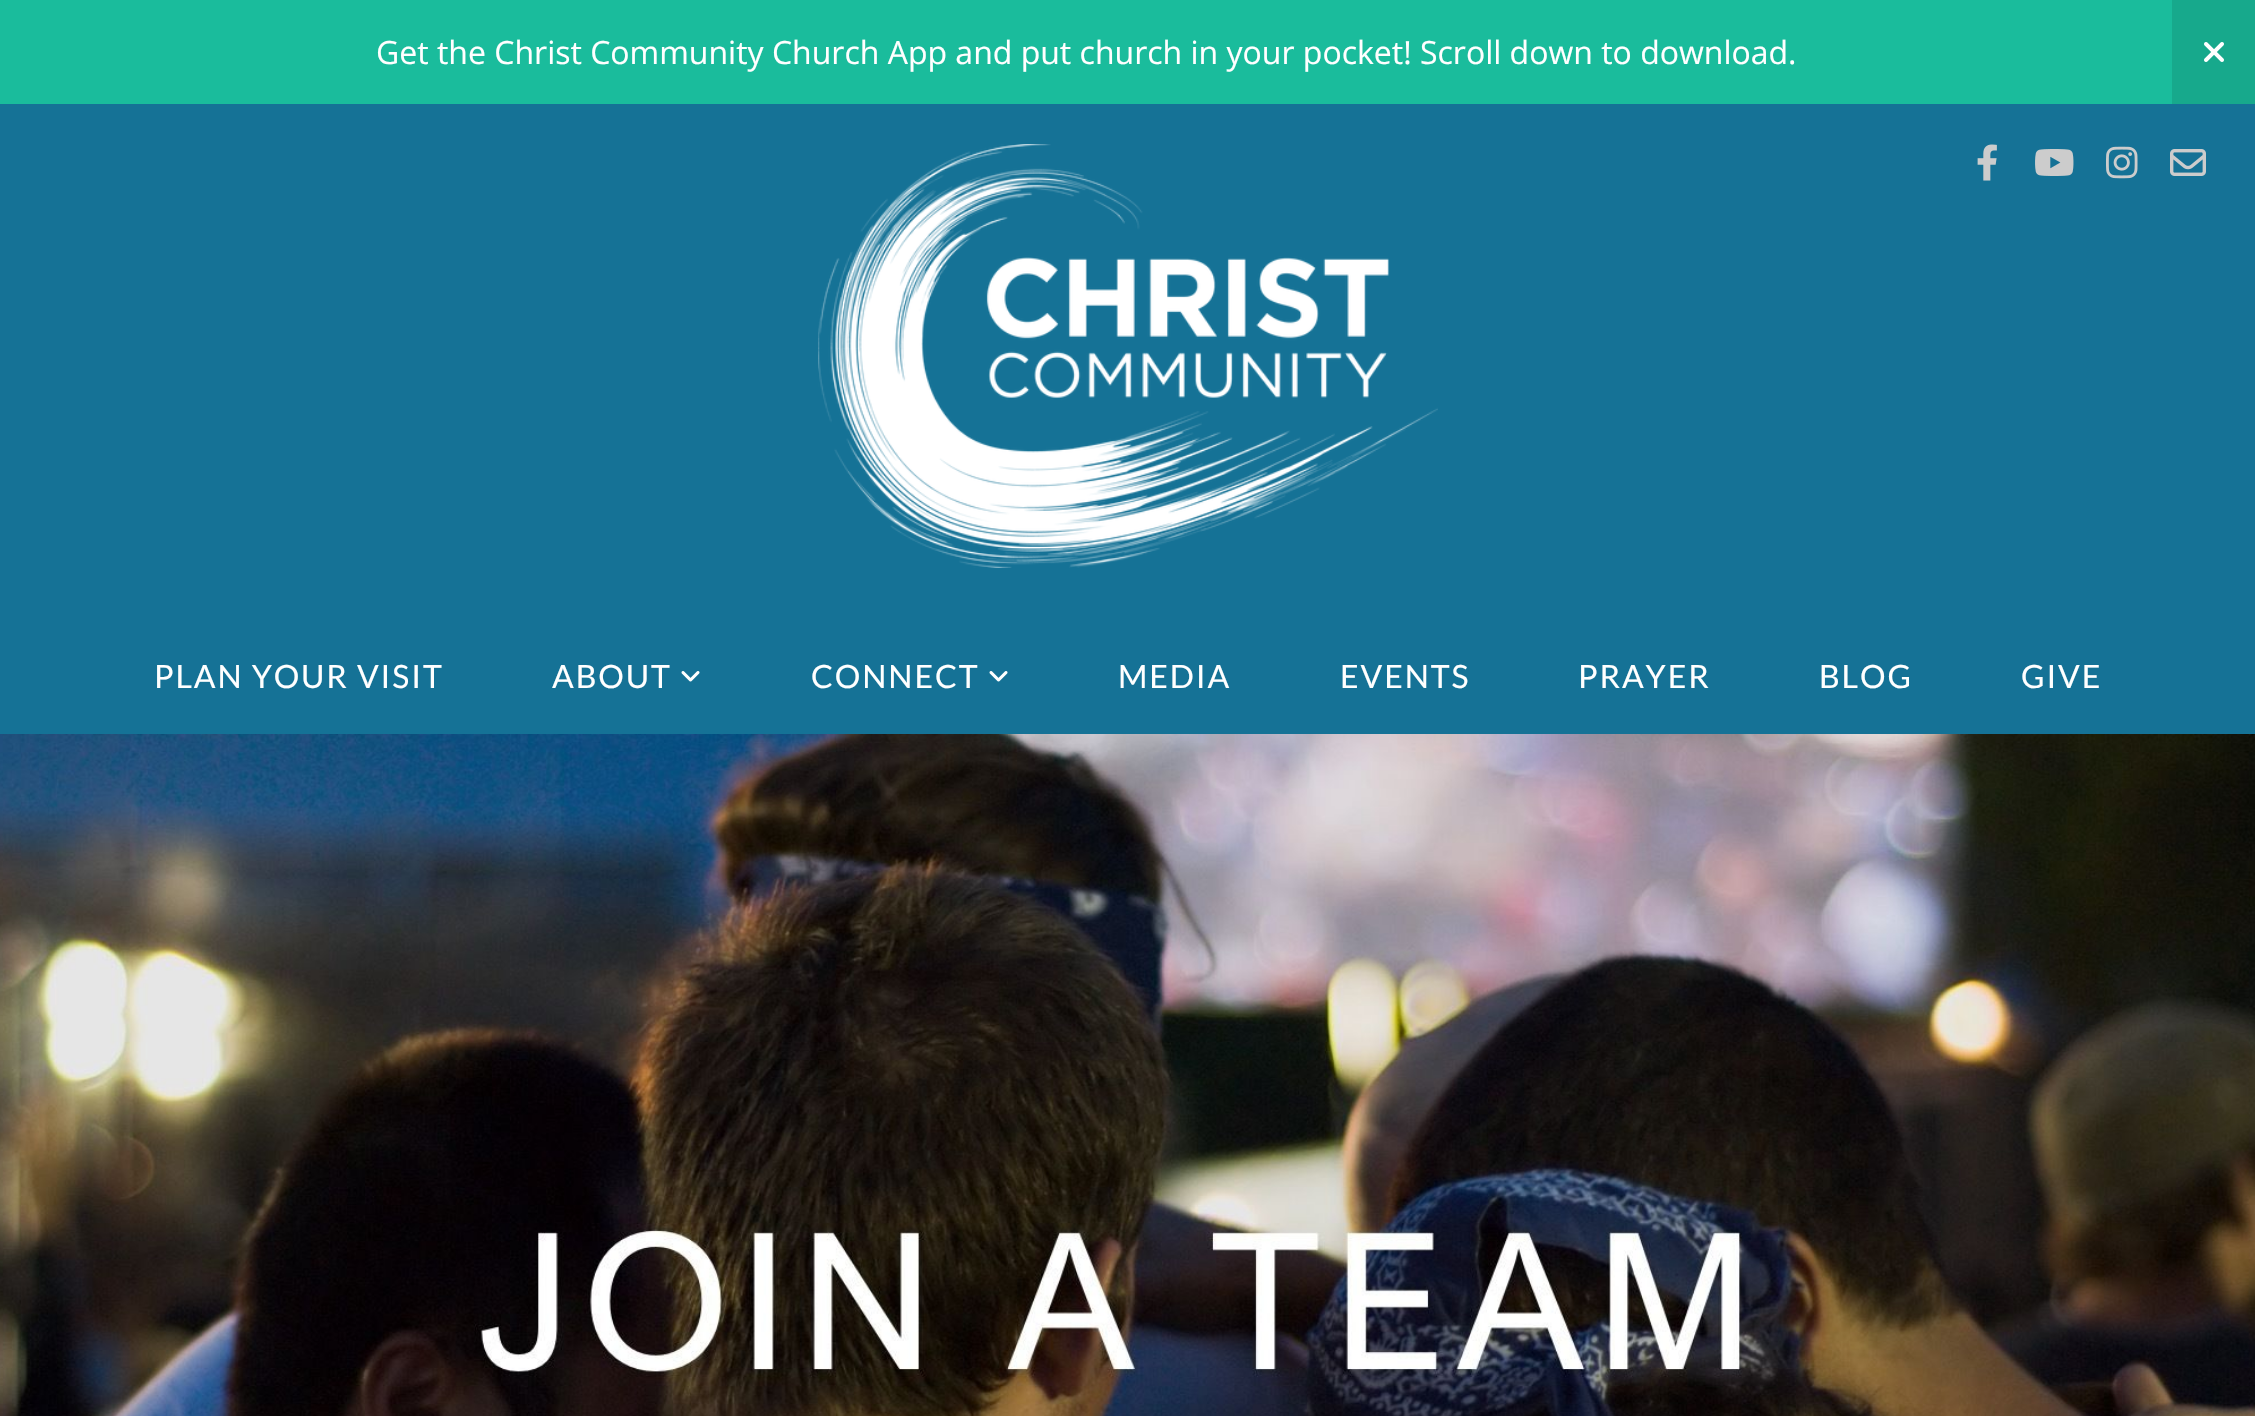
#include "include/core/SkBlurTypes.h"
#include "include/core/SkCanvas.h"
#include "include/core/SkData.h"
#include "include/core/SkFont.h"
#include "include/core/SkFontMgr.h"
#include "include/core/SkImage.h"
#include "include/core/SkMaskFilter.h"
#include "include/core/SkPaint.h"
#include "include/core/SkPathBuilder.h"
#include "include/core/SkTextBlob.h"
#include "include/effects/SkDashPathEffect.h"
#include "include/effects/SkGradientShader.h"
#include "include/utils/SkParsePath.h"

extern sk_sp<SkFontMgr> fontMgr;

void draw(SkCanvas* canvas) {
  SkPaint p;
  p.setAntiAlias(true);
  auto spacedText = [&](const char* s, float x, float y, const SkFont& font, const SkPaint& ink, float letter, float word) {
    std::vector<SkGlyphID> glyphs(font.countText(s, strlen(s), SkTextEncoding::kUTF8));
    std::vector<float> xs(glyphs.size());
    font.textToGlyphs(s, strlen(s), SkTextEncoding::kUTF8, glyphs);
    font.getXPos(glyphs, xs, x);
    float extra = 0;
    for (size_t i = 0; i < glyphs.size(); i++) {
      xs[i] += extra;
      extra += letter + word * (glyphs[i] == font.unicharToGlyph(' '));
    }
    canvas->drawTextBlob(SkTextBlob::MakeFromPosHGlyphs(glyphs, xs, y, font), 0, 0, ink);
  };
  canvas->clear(SkColorSetRGB(21, 114, 150));
  p.setColor(SkColorSetRGB(26, 188, 156));
  canvas->drawRect(SkRect::MakeLTRB(0, 0, 2172, 104), p);
  p.setColor(SkColorSetRGB(23, 169, 140));
  canvas->drawRect(SkRect::MakeLTRB(2172, 0, 2255, 104), p);
  canvas->drawImageRect(SkImages::DeferredFromEncodedData(SkData::MakeFromFileName("images/1.png")), SkRect::MakeLTRB(2204, 42, 2224, 62), SkSamplingOptions());
  canvas->drawImageRect(SkImages::DeferredFromEncodedData(SkData::MakeFromFileName("images/2.png")), SkRect::MakeLTRB(818, 144, 1438, 568), SkSamplingOptions());
  canvas->drawImageRect(SkImages::DeferredFromEncodedData(SkData::MakeFromFileName("images/3.png")), SkRect::MakeLTRB(1977, 144, 1997, 181), SkSamplingOptions());
  canvas->drawImageRect(SkImages::DeferredFromEncodedData(SkData::MakeFromFileName("images/4.png")), SkRect::MakeLTRB(2035, 149, 2074, 176), SkSamplingOptions());
  canvas->drawImageRect(SkImages::DeferredFromEncodedData(SkData::MakeFromFileName("images/5.png")), SkRect::MakeLTRB(2106, 146, 2138, 179), SkSamplingOptions());
  canvas->drawImageRect(SkImages::DeferredFromEncodedData(SkData::MakeFromFileName("images/6.png")), SkRect::MakeLTRB(2170, 149, 2206, 176), SkSamplingOptions());
  canvas->drawImageRect(SkImages::DeferredFromEncodedData(SkData::MakeFromFileName("images/7.png")), SkRect::MakeLTRB(681, 671, 700, 682), SkSamplingOptions());
  canvas->drawImageRect(SkImages::DeferredFromEncodedData(SkData::MakeFromFileName("images/7.png")), SkRect::MakeLTRB(989, 671, 1008, 682), SkSamplingOptions());
  canvas->drawImageRect(SkImages::DeferredFromEncodedData(SkData::MakeFromFileName("images/8.png")), SkRect::MakeLTRB(0, 734, 2255, 1416), SkSamplingOptions());
  SkFont font1(fontMgr->matchFamilyStyle("Open Sans", SkFontStyle::Normal()), 32);
  font1.setSubpixel(true);
  p.setColor(SK_ColorWHITE);
  canvas->drawString("Get the Christ Community Church App and put church in your pocket! Scroll down to download.", 376, 64, font1, p);
  SkFont font2(fontMgr->matchFamilyStyle("Lato", SkFontStyle::Normal()), 32);
  font2.setSubpixel(true);
  spacedText("PLAN YOUR VISIT", 154, 688, font2, p, 1.9f, 0);
  spacedText("ABOUT", 552, 688, font2, p, 1.9f, 0);
  spacedText("CONNECT", 811, 688, font2, p, 1.9f, 0);
  spacedText("MEDIA", 1118, 688, font2, p, 1.9f, 0);
  spacedText("EVENTS", 1340, 688, font2, p, 1.9f, 0);
  spacedText("PRAYER", 1578, 688, font2, p, 1.9f, 0);
  spacedText("BLOG", 1819, 688, font2, p, 1.9f, 0);
  spacedText("GIVE", 2021, 688, font2, p, 1.9f, 0);
}
